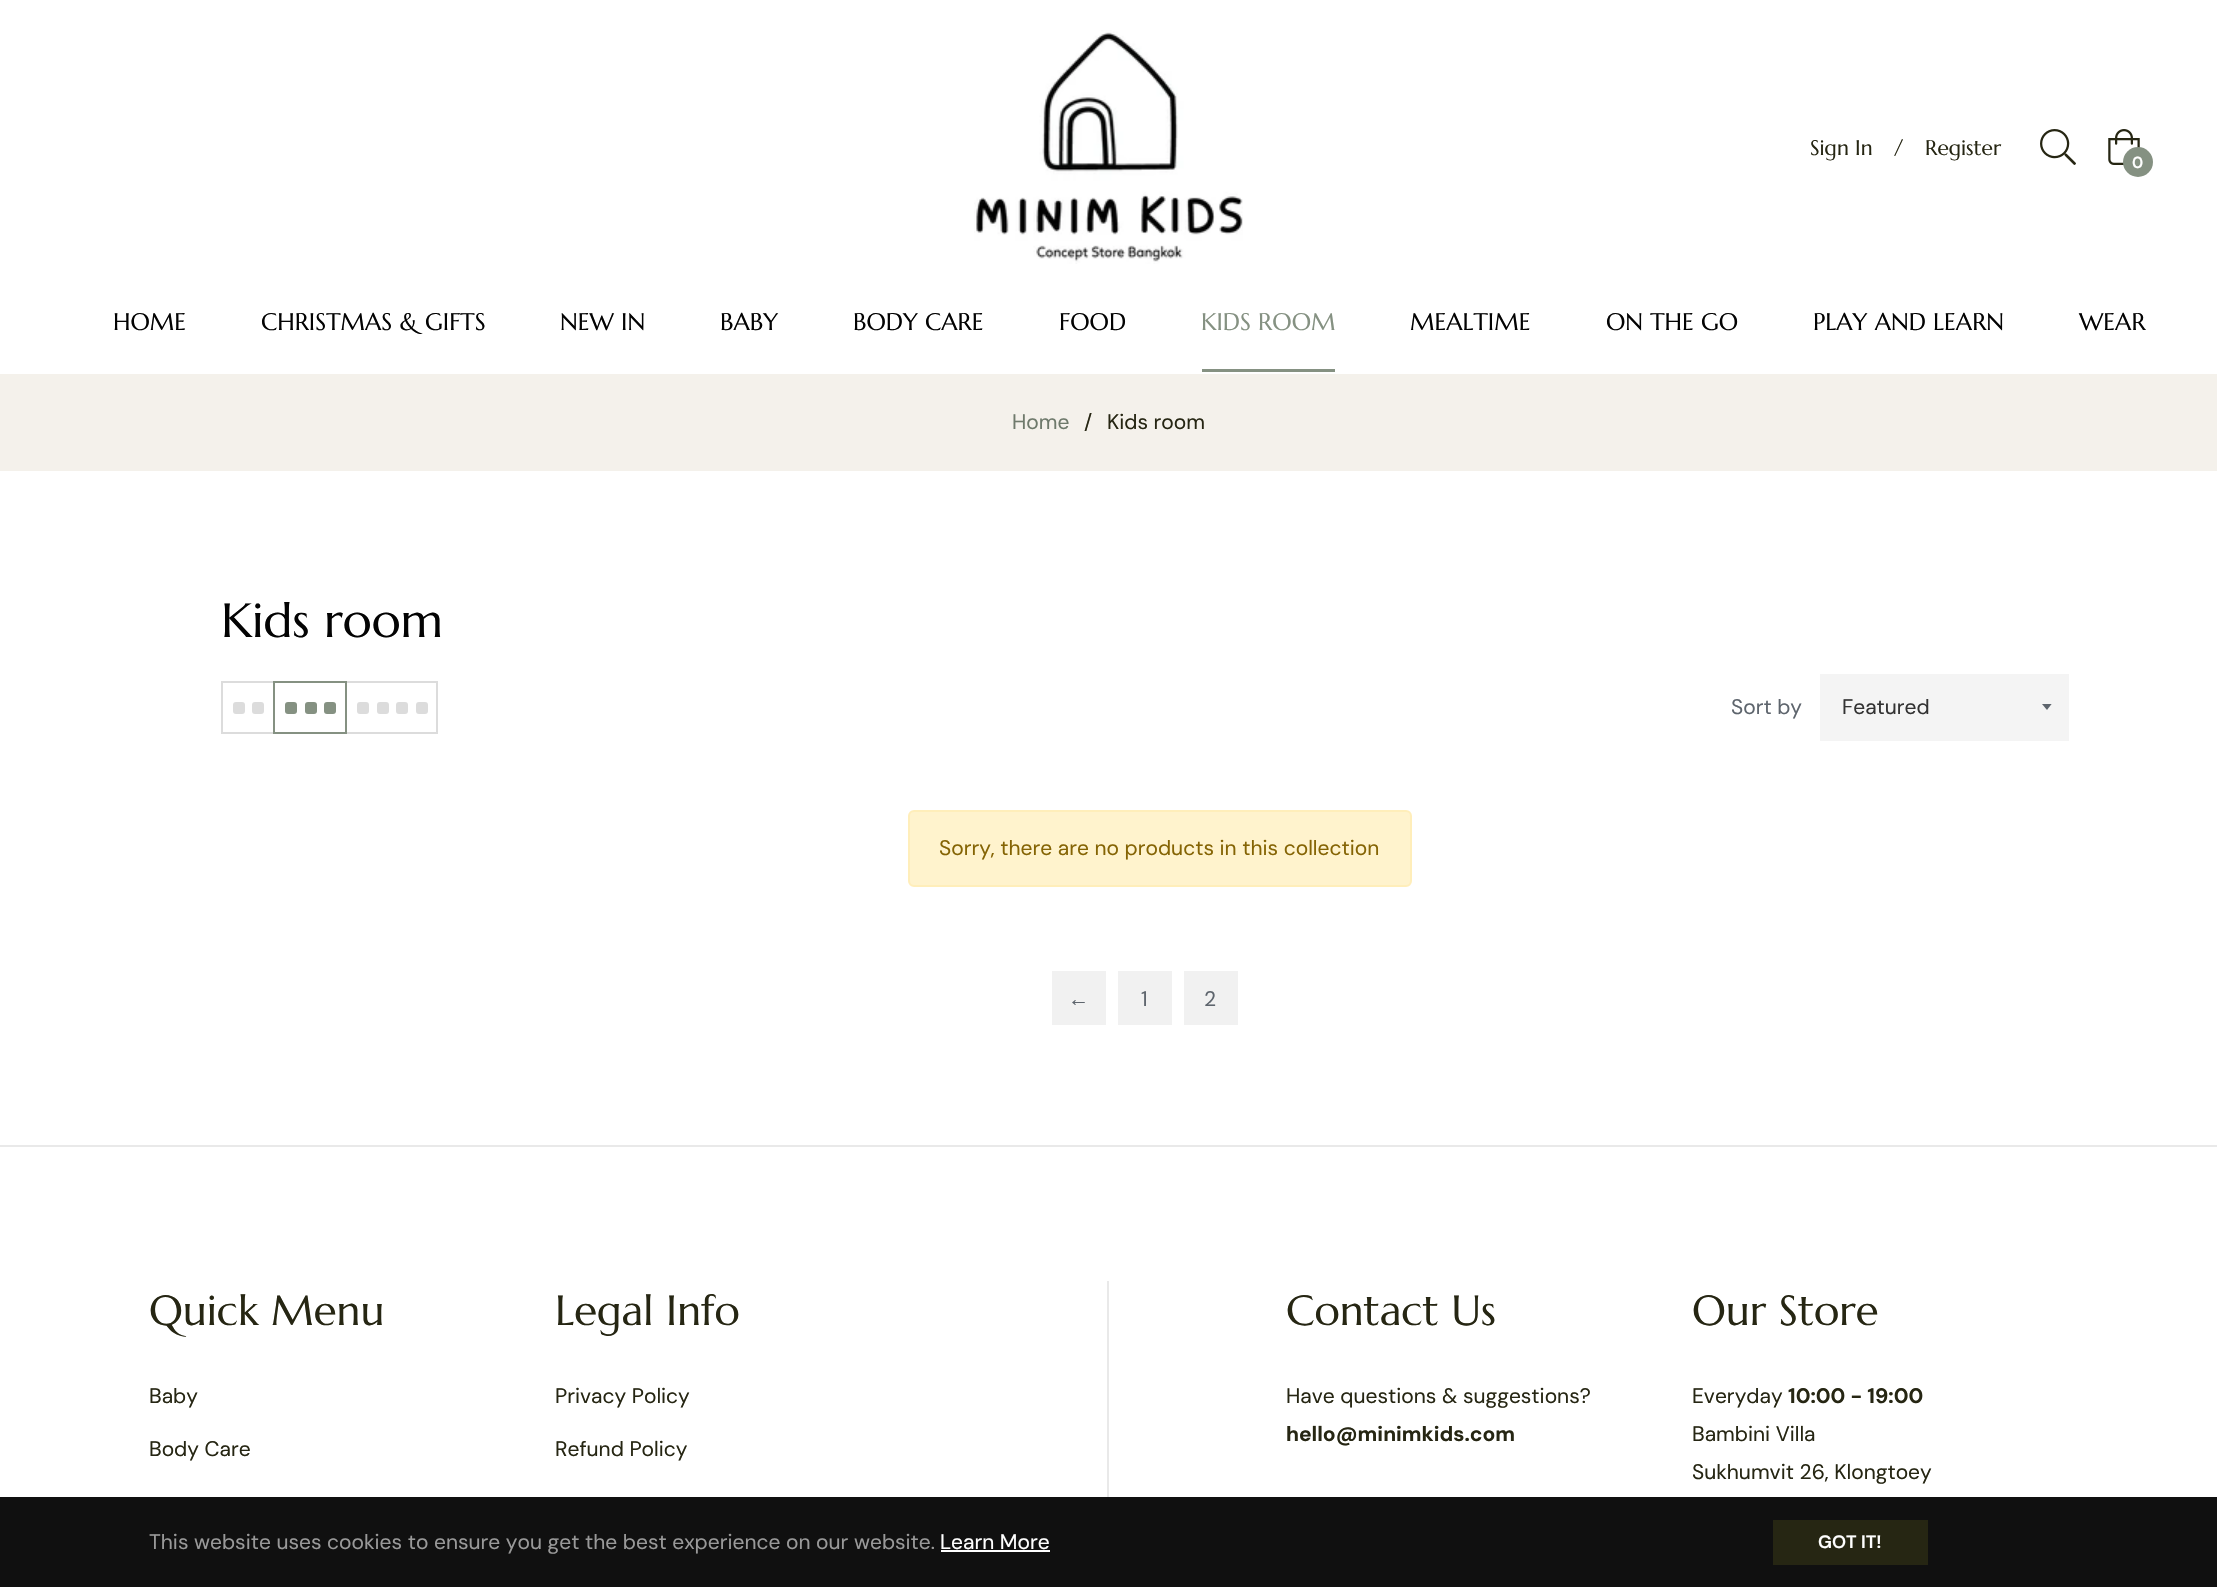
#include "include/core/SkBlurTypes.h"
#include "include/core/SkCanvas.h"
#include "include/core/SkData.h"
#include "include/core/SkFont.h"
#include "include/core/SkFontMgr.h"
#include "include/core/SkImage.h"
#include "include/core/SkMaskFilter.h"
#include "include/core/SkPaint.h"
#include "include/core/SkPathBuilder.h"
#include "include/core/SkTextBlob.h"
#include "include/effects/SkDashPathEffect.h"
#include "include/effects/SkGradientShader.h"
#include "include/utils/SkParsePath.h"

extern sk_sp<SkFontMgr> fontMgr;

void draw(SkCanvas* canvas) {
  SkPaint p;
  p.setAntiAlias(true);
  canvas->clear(SK_ColorWHITE);
  canvas->drawImageRect(SkImages::DeferredFromEncodedData(SkData::MakeFromFileName("images/1.png")), SkRect::MakeLTRB(974, 30, 1243, 264), SkSamplingOptions());
  canvas->drawImageRect(SkImages::DeferredFromEncodedData(SkData::MakeFromFileName("images/2.png")), SkRect::MakeLTRB(2040, 129, 2076, 165), SkSamplingOptions());
  canvas->drawImageRect(SkImages::DeferredFromEncodedData(SkData::MakeFromFileName("images/3.png")), SkRect::MakeLTRB(2108, 129, 2140, 165), SkSamplingOptions());
  p.setColor(SkColorSetRGB(133, 145, 130));
  canvas->drawCircle(2138, 162, 15, p);
  canvas->drawRect(SkRect::MakeLTRB(1202, 369, 1335, 372), p);
  p.setColor(SkColorSetRGB(244, 241, 235));
  canvas->drawRect(SkRect::MakeLTRB(0, 374, 2217, 471), p);
  p.setStyle(SkPaint::kStroke_Style);
  p.setStrokeWidth(2);
  p.setColor(SkColorSetRGB(220, 220, 220));
  canvas->drawRect(SkRect::MakeLTRB(222, 682, 274, 733), p);
  p.setStyle(SkPaint::kFill_Style);
  canvas->drawRoundRect(SkRect::MakeLTRB(252, 702, 264, 714), 3, 3, p);
  canvas->drawRoundRect(SkRect::MakeLTRB(233, 702, 245, 714), 3, 3, p);
  p.setStyle(SkPaint::kStroke_Style);
  canvas->drawRect(SkRect::MakeLTRB(346, 682, 437, 733), p);
  p.setColor(SkColorSetRGB(133, 145, 130));
  canvas->drawRect(SkRect::MakeLTRB(274, 682, 346, 733), p);
  p.setStyle(SkPaint::kFill_Style);
  canvas->drawRoundRect(SkRect::MakeLTRB(324, 702, 336, 714), 3, 3, p);
  canvas->drawRoundRect(SkRect::MakeLTRB(305, 702, 317, 714), 3, 3, p);
  canvas->drawRoundRect(SkRect::MakeLTRB(285, 702, 297, 714), 3, 3, p);
  p.setColor(SkColorSetRGB(220, 220, 220));
  canvas->drawRoundRect(SkRect::MakeLTRB(416, 702, 428, 714), 3, 3, p);
  canvas->drawRoundRect(SkRect::MakeLTRB(396, 702, 408, 714), 3, 3, p);
  canvas->drawRoundRect(SkRect::MakeLTRB(377, 702, 389, 714), 3, 3, p);
  canvas->drawRoundRect(SkRect::MakeLTRB(357, 702, 369, 714), 3, 3, p);
  p.setColor(SkColorSetRGB(244, 244, 244));
  canvas->drawRect(SkRect::MakeLTRB(1820, 674, 2069, 741), p);
  canvas->save();
  canvas->clipRect(SkRect::MakeLTRB(2042, 704, 2054, 711));
  p.setColor(SkColorSetRGB(94, 101, 109));
  canvas->drawPath(SkPathBuilder().moveTo(2041.5f, 703.5f).lineTo(2047, 710).lineTo(2052, 703.5f).close().detach(), p);
  canvas->restore();
  p.setColor(SkColorSetRGB(255, 243, 205));
  canvas->drawRoundRect(SkRect::MakeLTRB(909, 811, 1411, 886), 5, 5, p);
  p.setStyle(SkPaint::kStroke_Style);
  p.setColor(SkColorSetRGB(255, 238, 186));
  canvas->drawRoundRect(SkRect::MakeLTRB(909, 811, 1411, 886), 5, 5, p);
  p.setStyle(SkPaint::kFill_Style);
  p.setColor(SkColorSetRGB(241, 241, 241));
  canvas->drawRect(SkRect::MakeLTRB(1052, 971, 1106, 1025), p);
  canvas->drawRect(SkRect::MakeLTRB(1118, 971, 1172, 1025), p);
  canvas->drawRect(SkRect::MakeLTRB(1184, 971, 1238, 1025), p);
  p.setColor(SkColorSetRGB(233, 233, 233));
  canvas->drawRect(SkRect::MakeLTRB(0, 1145, 2217, 1147), p);
  canvas->drawRect(SkRect::MakeLTRB(1107, 1281, 1109, 1497), p);
  p.setColor(SkColorSetRGB(16, 16, 16));
  canvas->drawRect(SkRect::MakeLTRB(0, 1497, 2217, 1587), p);
  p.setColor(SK_ColorWHITE);
  canvas->drawRect(SkRect::MakeLTRB(941, 1550, 1050, 1552), p);
  p.setColor(SkColorSetRGB(38, 38, 19));
  canvas->drawRect(SkRect::MakeLTRB(1773, 1520, 1928, 1565), p);
  SkFont font1(fontMgr->matchFamilyStyle("Marcellus", SkFontStyle::Normal()), 21);
  font1.setSubpixel(true);
  canvas->drawString("Sign In", 1810, 155, font1, p);
  canvas->drawString("/", 1894, 155, font1, p);
  canvas->drawString("Register", 1925, 155, font1, p);
  SkFont font2(fontMgr->matchFamilyStyle("DM Sans", SkFontStyle(600, SkFontStyle::kNormal_Width, SkFontStyle::kUpright_Slant)), 16);
  font2.setSubpixel(true);
  p.setColor(SK_ColorWHITE);
  canvas->drawString("0", 2132, 168, font2, p);
  SkFont font3(fontMgr->matchFamilyStyle("Marcellus", SkFontStyle::Normal()), 24);
  font3.setSubpixel(true);
  p.setColor(SkColorSetRGB(3, 3, 3));
  canvas->drawString("HOME", 113, 330, font3, p);
  canvas->drawString("CHRISTMAS & GIFTS", 261, 330, font3, p);
  canvas->drawString("NEW IN", 560, 330, font3, p);
  canvas->drawString("BABY", 720, 330, font3, p);
  canvas->drawString("BODY CARE", 853, 330, font3, p);
  canvas->drawString("FOOD", 1059, 330, font3, p);
  p.setColor(SkColorSetRGB(133, 145, 130));
  canvas->drawString("KIDS ROOM", 1201, 330, font3, p);
  p.setColor(SkColorSetRGB(3, 3, 3));
  canvas->drawString("MEALTIME", 1410, 330, font3, p);
  canvas->drawString("ON THE GO", 1606, 330, font3, p);
  canvas->drawString("PLAY AND LEARN", 1813, 330, font3, p);
  canvas->drawString("WEAR", 2079, 330, font3, p);
  SkFont font4(fontMgr->matchFamilyStyle("DM Sans", SkFontStyle::Normal()), 21);
  font4.setSubpixel(true);
  p.setColor(SkColorSetRGB(111, 122, 108));
  canvas->drawString("Home", 1012, 429, font4, p);
  p.setColor(SkColorSetRGB(38, 38, 19));
  canvas->drawString("/", 1084, 429, font4, p);
  canvas->drawString("Kids room", 1107, 429, font4, p);
  SkFont font5(fontMgr->matchFamilyStyle("Marcellus", SkFontStyle::Normal()), 48);
  font5.setSubpixel(true);
  p.setColor(SkColorSetRGB(3, 3, 3));
  canvas->drawString("Kids room", 221, 637, font5, p);
  p.setColor(SkColorSetRGB(94, 101, 109));
  canvas->drawString("Sort by", 1731, 714, font4, p);
  p.setColor(SkColorSetRGB(51, 51, 51));
  canvas->drawString("Featured", 1842, 714, font4, p);
  p.setColor(SkColorSetRGB(133, 100, 4));
  canvas->drawString("Sorry, there are no products in this collection", 939, 855, font4, p);
  SkFont font6(fontMgr->matchFamilyStyle("Liberation Serif", SkFontStyle::Normal()), 21);
  font6.setSubpixel(true);
  p.setColor(SkColorSetRGB(94, 101, 109));
  canvas->drawString("←", 1068, 1006, font6, p);
  canvas->drawString("1", 1141, 1006, font4, p);
  canvas->drawString("2", 1204, 1006, font4, p);
  SkFont font7(fontMgr->matchFamilyStyle("Marcellus", SkFontStyle::Normal()), 42);
  font7.setSubpixel(true);
  p.setColor(SkColorSetRGB(38, 38, 19));
  canvas->drawString("Quick Menu", 149, 1325, font7, p);
  canvas->drawString("Baby", 149, 1403, font4, p);
  canvas->drawString("Body Care", 149, 1456, font4, p);
  canvas->drawString("Legal Info", 555, 1325, font7, p);
  canvas->drawString("Privacy Policy", 555, 1403, font4, p);
  canvas->drawString("Refund Policy", 555, 1456, font4, p);
  canvas->drawString("Contact Us", 1286, 1325, font7, p);
  canvas->drawString("Have questions & suggestions?", 1286, 1403, font4, p);
  SkFont font8(fontMgr->matchFamilyStyle("DM Sans", SkFontStyle::Bold()), 21);
  font8.setSubpixel(true);
  canvas->drawString("hello@minimkids.com", 1286, 1441, font8, p);
  canvas->drawString("Our Store", 1692, 1325, font7, p);
  canvas->drawString("Everyday", 1692, 1403, font4, p);
  canvas->drawString("10:00 - 19:00", 1788, 1403, font8, p);
  canvas->drawString("Bambini Villa", 1692, 1441, font4, p);
  canvas->drawString("Sukhumvit 26, Klongtoey", 1692, 1479, font4, p);
  p.setColor(SkColorSetRGB(153, 153, 153));
  canvas->drawString("This website uses cookies to ensure you get the best experience on our website.", 149, 1549, font4, p);
  p.setColor(SK_ColorWHITE);
  canvas->drawString("Learn More", 940, 1549, font4, p);
  SkFont font9(fontMgr->matchFamilyStyle("DM Sans", SkFontStyle(600, SkFontStyle::kNormal_Width, SkFontStyle::kUpright_Slant)), 18);
  font9.setSubpixel(true);
  canvas->drawString("GOT IT!", 1818, 1548, font9, p);
}
